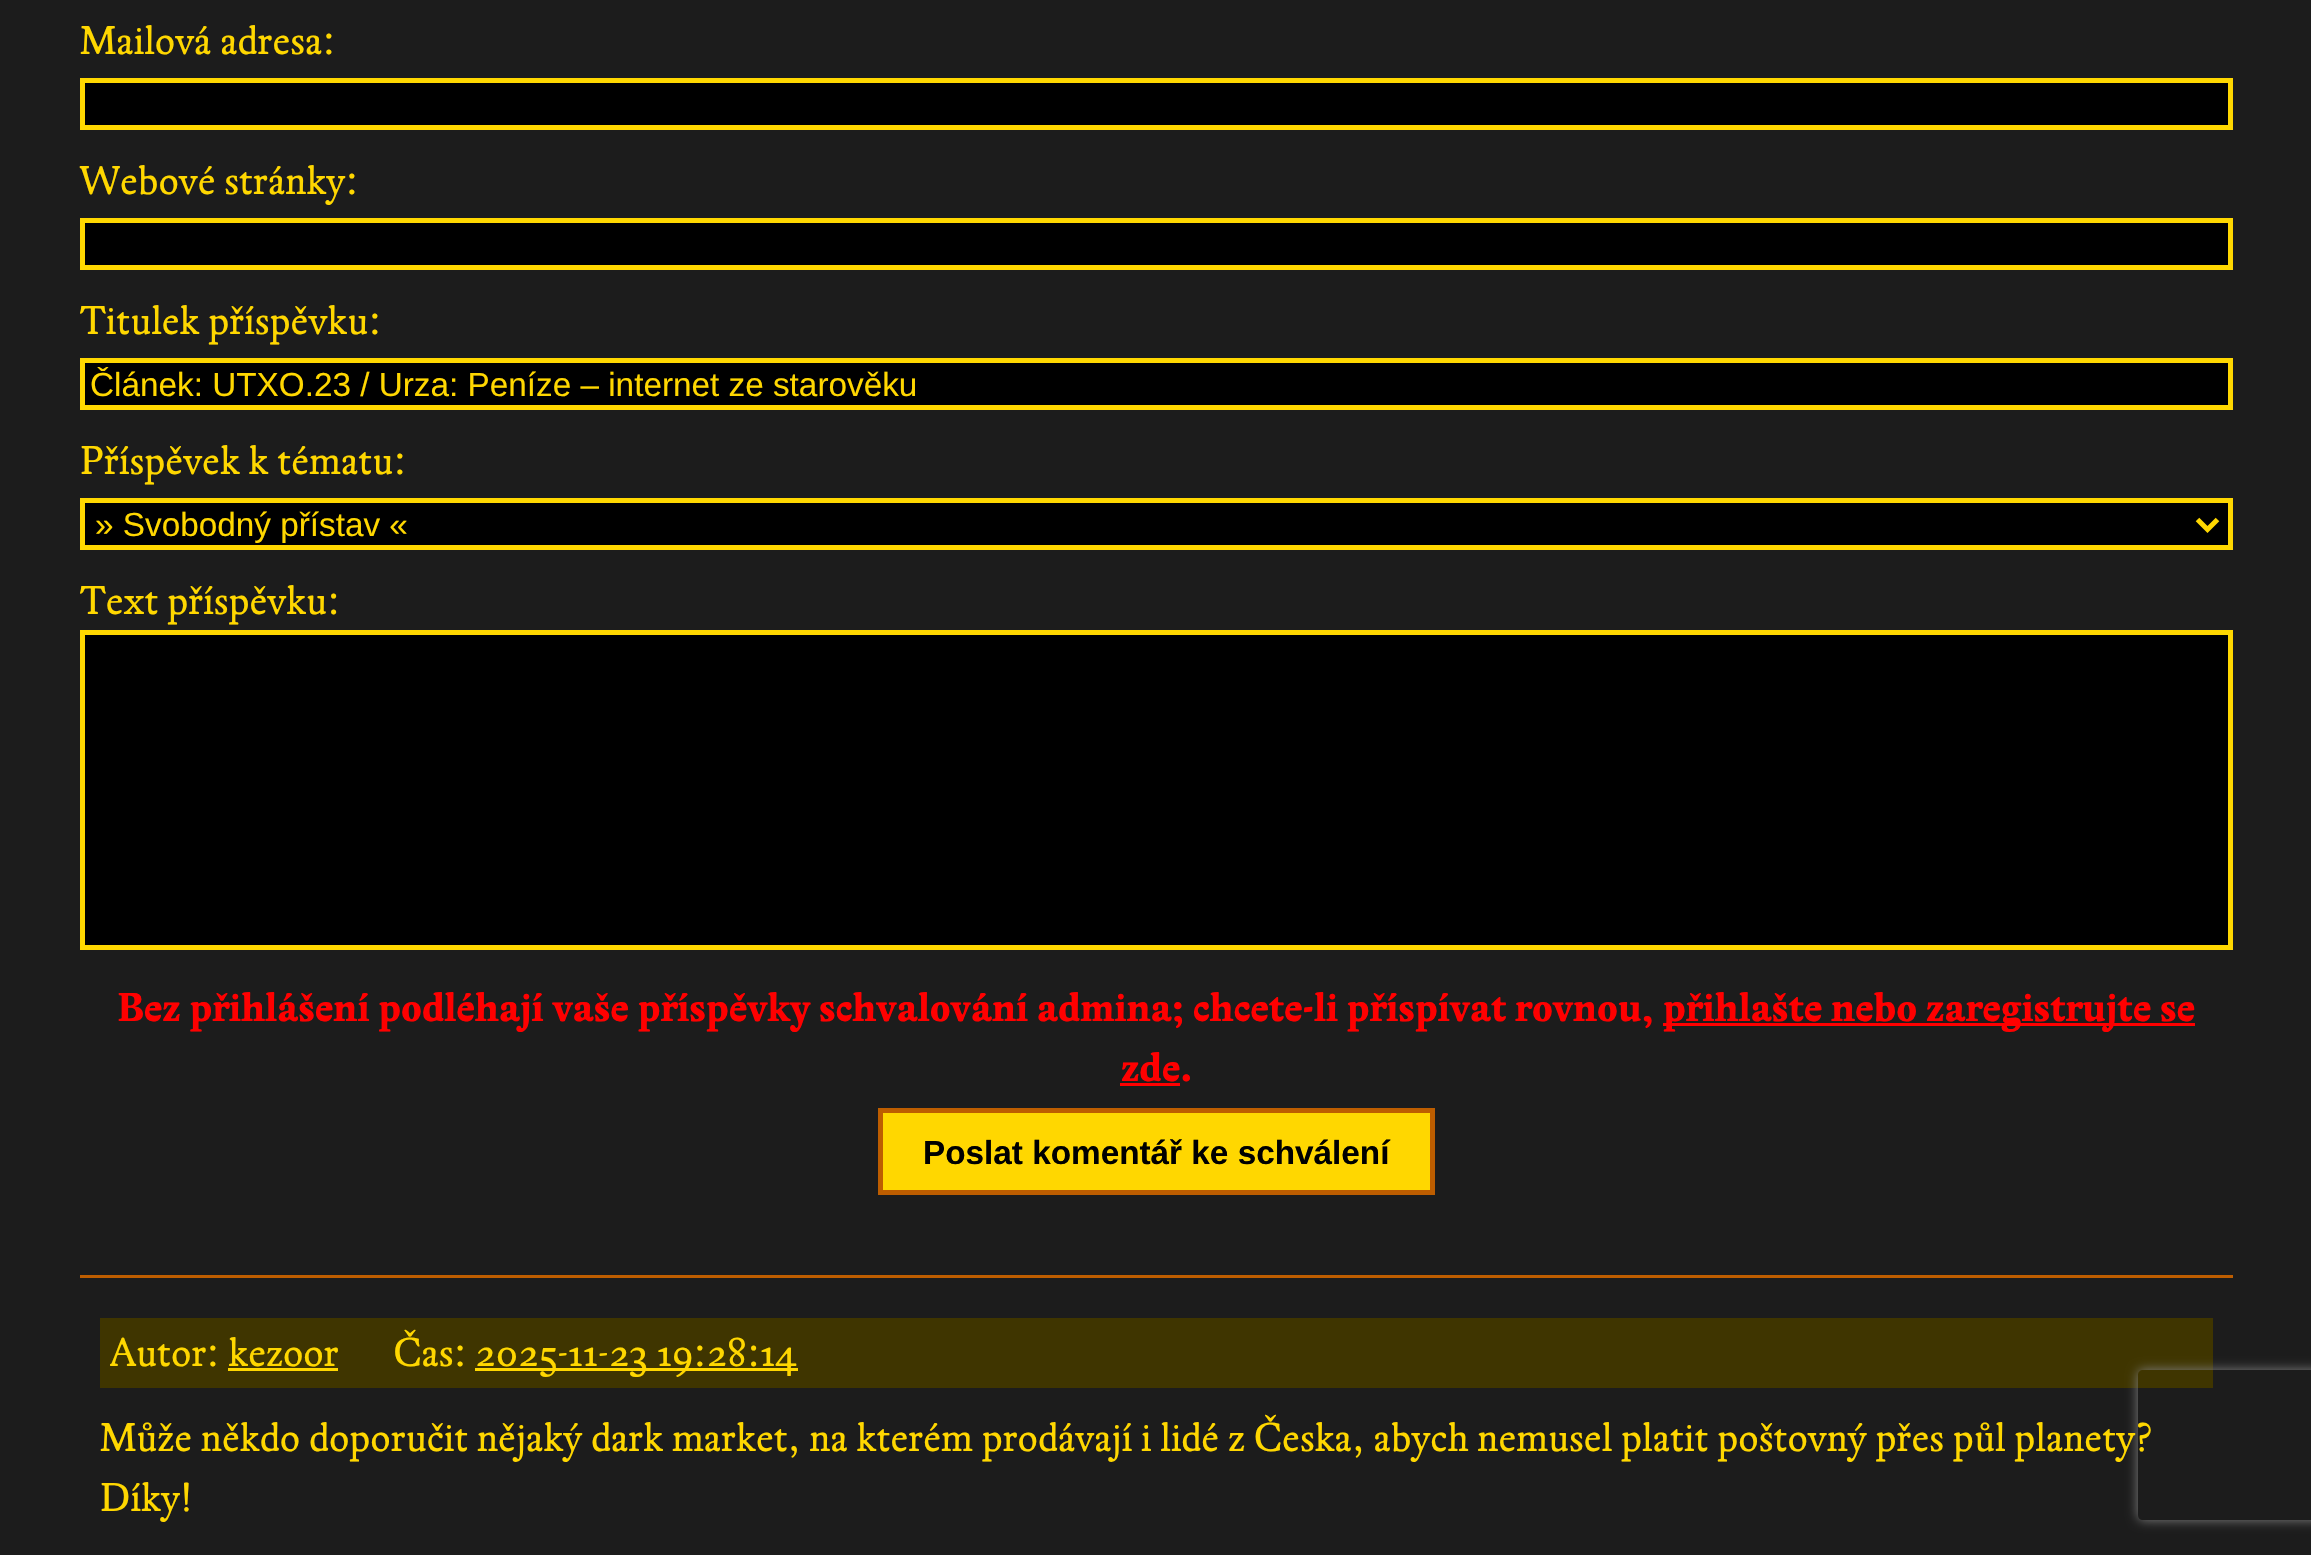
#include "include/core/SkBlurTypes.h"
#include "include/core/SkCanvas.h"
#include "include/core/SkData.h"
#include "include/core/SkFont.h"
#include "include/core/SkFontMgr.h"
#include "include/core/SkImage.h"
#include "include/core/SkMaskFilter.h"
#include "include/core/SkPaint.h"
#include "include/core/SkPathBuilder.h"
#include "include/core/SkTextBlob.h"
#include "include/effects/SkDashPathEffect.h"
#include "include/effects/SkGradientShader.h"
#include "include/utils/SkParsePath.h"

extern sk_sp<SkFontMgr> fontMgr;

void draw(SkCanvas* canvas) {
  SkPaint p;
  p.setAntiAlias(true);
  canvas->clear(SkColorSetRGB(28, 28, 28));
  p.setColor(SK_ColorBLACK);
  canvas->drawRect(SkRect::MakeLTRB(82.5f, 80.5f, 2230.5f, 127.5f), p);
  p.setStyle(SkPaint::kStroke_Style);
  p.setStrokeWidth(5);
  p.setColor(SkColorSetRGB(255, 215, 0));
  canvas->drawRect(SkRect::MakeLTRB(82.5f, 80.5f, 2230.5f, 127.5f), p);
  p.setStyle(SkPaint::kFill_Style);
  p.setColor(SK_ColorBLACK);
  canvas->drawRect(SkRect::MakeLTRB(82.5f, 220.5f, 2230.5f, 267.5f), p);
  p.setStyle(SkPaint::kStroke_Style);
  p.setColor(SkColorSetRGB(255, 215, 0));
  canvas->drawRect(SkRect::MakeLTRB(82.5f, 220.5f, 2230.5f, 267.5f), p);
  p.setStyle(SkPaint::kFill_Style);
  p.setColor(SK_ColorBLACK);
  canvas->drawRect(SkRect::MakeLTRB(82.5f, 360.5f, 2230.5f, 407.5f), p);
  p.setStyle(SkPaint::kStroke_Style);
  p.setColor(SkColorSetRGB(255, 215, 0));
  canvas->drawRect(SkRect::MakeLTRB(82.5f, 360.5f, 2230.5f, 407.5f), p);
  p.setStyle(SkPaint::kFill_Style);
  p.setColor(SK_ColorBLACK);
  canvas->drawRect(SkRect::MakeLTRB(82.5f, 500.5f, 2230.5f, 547.5f), p);
  p.setStyle(SkPaint::kStroke_Style);
  p.setColor(SkColorSetRGB(255, 215, 0));
  canvas->drawRect(SkRect::MakeLTRB(82.5f, 500.5f, 2230.5f, 547.5f), p);
  canvas->drawPath(SkPathBuilder().moveTo(2197.5f, 519.5f).lineTo(2207.5f, 529.5f).lineTo(2217.5f, 519.5f).detach(), p);
  p.setStyle(SkPaint::kFill_Style);
  p.setColor(SK_ColorBLACK);
  canvas->drawRect(SkRect::MakeLTRB(82.5f, 632.5f, 2230.5f, 947.5f), p);
  p.setStyle(SkPaint::kStroke_Style);
  p.setColor(SkColorSetRGB(255, 215, 0));
  canvas->drawRect(SkRect::MakeLTRB(82.5f, 632.5f, 2230.5f, 947.5f), p);
  p.setStyle(SkPaint::kFill_Style);
  p.setColor(SkColorSetRGB(255, 0, 0));
  canvas->drawRect(SkRect::MakeLTRB(1663, 1023, 2195, 1026), p);
  canvas->drawRect(SkRect::MakeLTRB(1120, 1083, 1180, 1086), p);
  p.setColor(SkColorSetRGB(255, 215, 0));
  canvas->drawRect(SkRect::MakeLTRB(880.5f, 1110.5f, 1432.5f, 1192.5f), p);
  p.setStyle(SkPaint::kStroke_Style);
  p.setColor(SkColorSetRGB(189, 93, 0));
  canvas->drawRect(SkRect::MakeLTRB(880.5f, 1110.5f, 1432.5f, 1192.5f), p);
  p.setStyle(SkPaint::kFill_Style);
  p.setColor(SkColorSetRGB(63, 53, 0));
  canvas->drawRect(SkRect::MakeLTRB(100, 1318, 2213, 1388), p);
  canvas->save();
  canvas->clipPath(SkPathBuilder(SkPathFillType::kEvenOdd).moveTo(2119, 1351).lineTo(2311, 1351).lineTo(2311, 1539).lineTo(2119, 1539).close().moveTo(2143, 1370).lineTo(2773, 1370).cubicTo(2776, 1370, 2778, 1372, 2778, 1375).lineTo(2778, 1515).cubicTo(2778, 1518, 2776, 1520, 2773, 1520).lineTo(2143, 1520).cubicTo(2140, 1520, 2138, 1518, 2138, 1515).lineTo(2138, 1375).cubicTo(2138, 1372, 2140, 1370, 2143, 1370).close().detach(), true);
  p.setColor(SkColorSetRGB(128, 128, 128));
  p.setMaskFilter(SkMaskFilter::MakeBlur(kNormal_SkBlurStyle, 6));
  canvas->drawRoundRect(SkRect::MakeLTRB(2138, 1370, 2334, 1520), 5, 5, p);
  p.setMaskFilter(nullptr);
  canvas->restore();
  p.setColor(SkColorSetRGB(189, 93, 0));
  canvas->drawRect(SkRect::MakeLTRB(80, 1275, 2233, 1278), p);
  p.setColor(SkColorSetRGB(255, 215, 0));
  canvas->drawRect(SkRect::MakeLTRB(228, 1368, 338, 1371), p);
  canvas->drawRect(SkRect::MakeLTRB(475, 1368, 798, 1371), p);
  SkFont font1(fontMgr->matchFamilyStyle("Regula", SkFontStyle::Normal()), 40);
  font1.setSubpixel(true);
  canvas->drawString("Mailová adresa:", 80, 54, font1, p);
  canvas->drawString("Webové stránky:", 80, 194, font1, p);
  canvas->drawString("Titulek příspěvku:", 80, 334, font1, p);
  SkFont font2(fontMgr->matchFamilyStyle("Liberation Sans", SkFontStyle::Normal()), 33.3f);
  font2.setSubpixel(true);
  canvas->drawString("Článek: UTXO.23 / Urza: Peníze – internet ze starověku", 90, 396, font2, p);
  canvas->drawString("Příspěvek k tématu:", 80, 474, font1, p);
  canvas->drawString("» Svobodný přístav «", 95, 536, font2, p);
  canvas->drawString("Text příspěvku:", 80, 614, font1, p);
  SkFont font3(fontMgr->matchFamilyStyle("Regula", SkFontStyle::Bold()), 40);
  font3.setSubpixel(true);
  p.setColor(SkColorSetRGB(255, 0, 0));
  canvas->drawString("Bez přihlášení podléhají vaše příspěvky schvalování admina; chcete-li příspívat rovnou,", 117, 1021, font3, p);
  canvas->drawString("přihlašte nebo zaregistrujte se", 1663, 1021, font3, p);
  canvas->drawString("zde.", 1121, 1081, font3, p);
  SkFont font4(fontMgr->matchFamilyStyle("Liberation Sans", SkFontStyle::Bold()), 33.3f);
  font4.setSubpixel(true);
  p.setColor(SK_ColorBLACK);
  canvas->drawString("Poslat komentář ke schválení", 923, 1164, font4, p);
  p.setColor(SkColorSetRGB(255, 215, 0));
  canvas->drawString("Autor: kezoor", 110, 1366, font1, p);
  canvas->drawString("Čas:", 393, 1366, font1, p);
  canvas->drawString("2025-11-23 19:28:14", 475, 1366, font1, p);
  canvas->drawString("Může někdo doporučit nějaký dark market, na kterém prodávají i lidé z Česka, abych nemusel platit poštovný přes půl planety?", 100, 1451, font1, p);
  canvas->drawString("Díky!", 100, 1511, font1, p);
}
